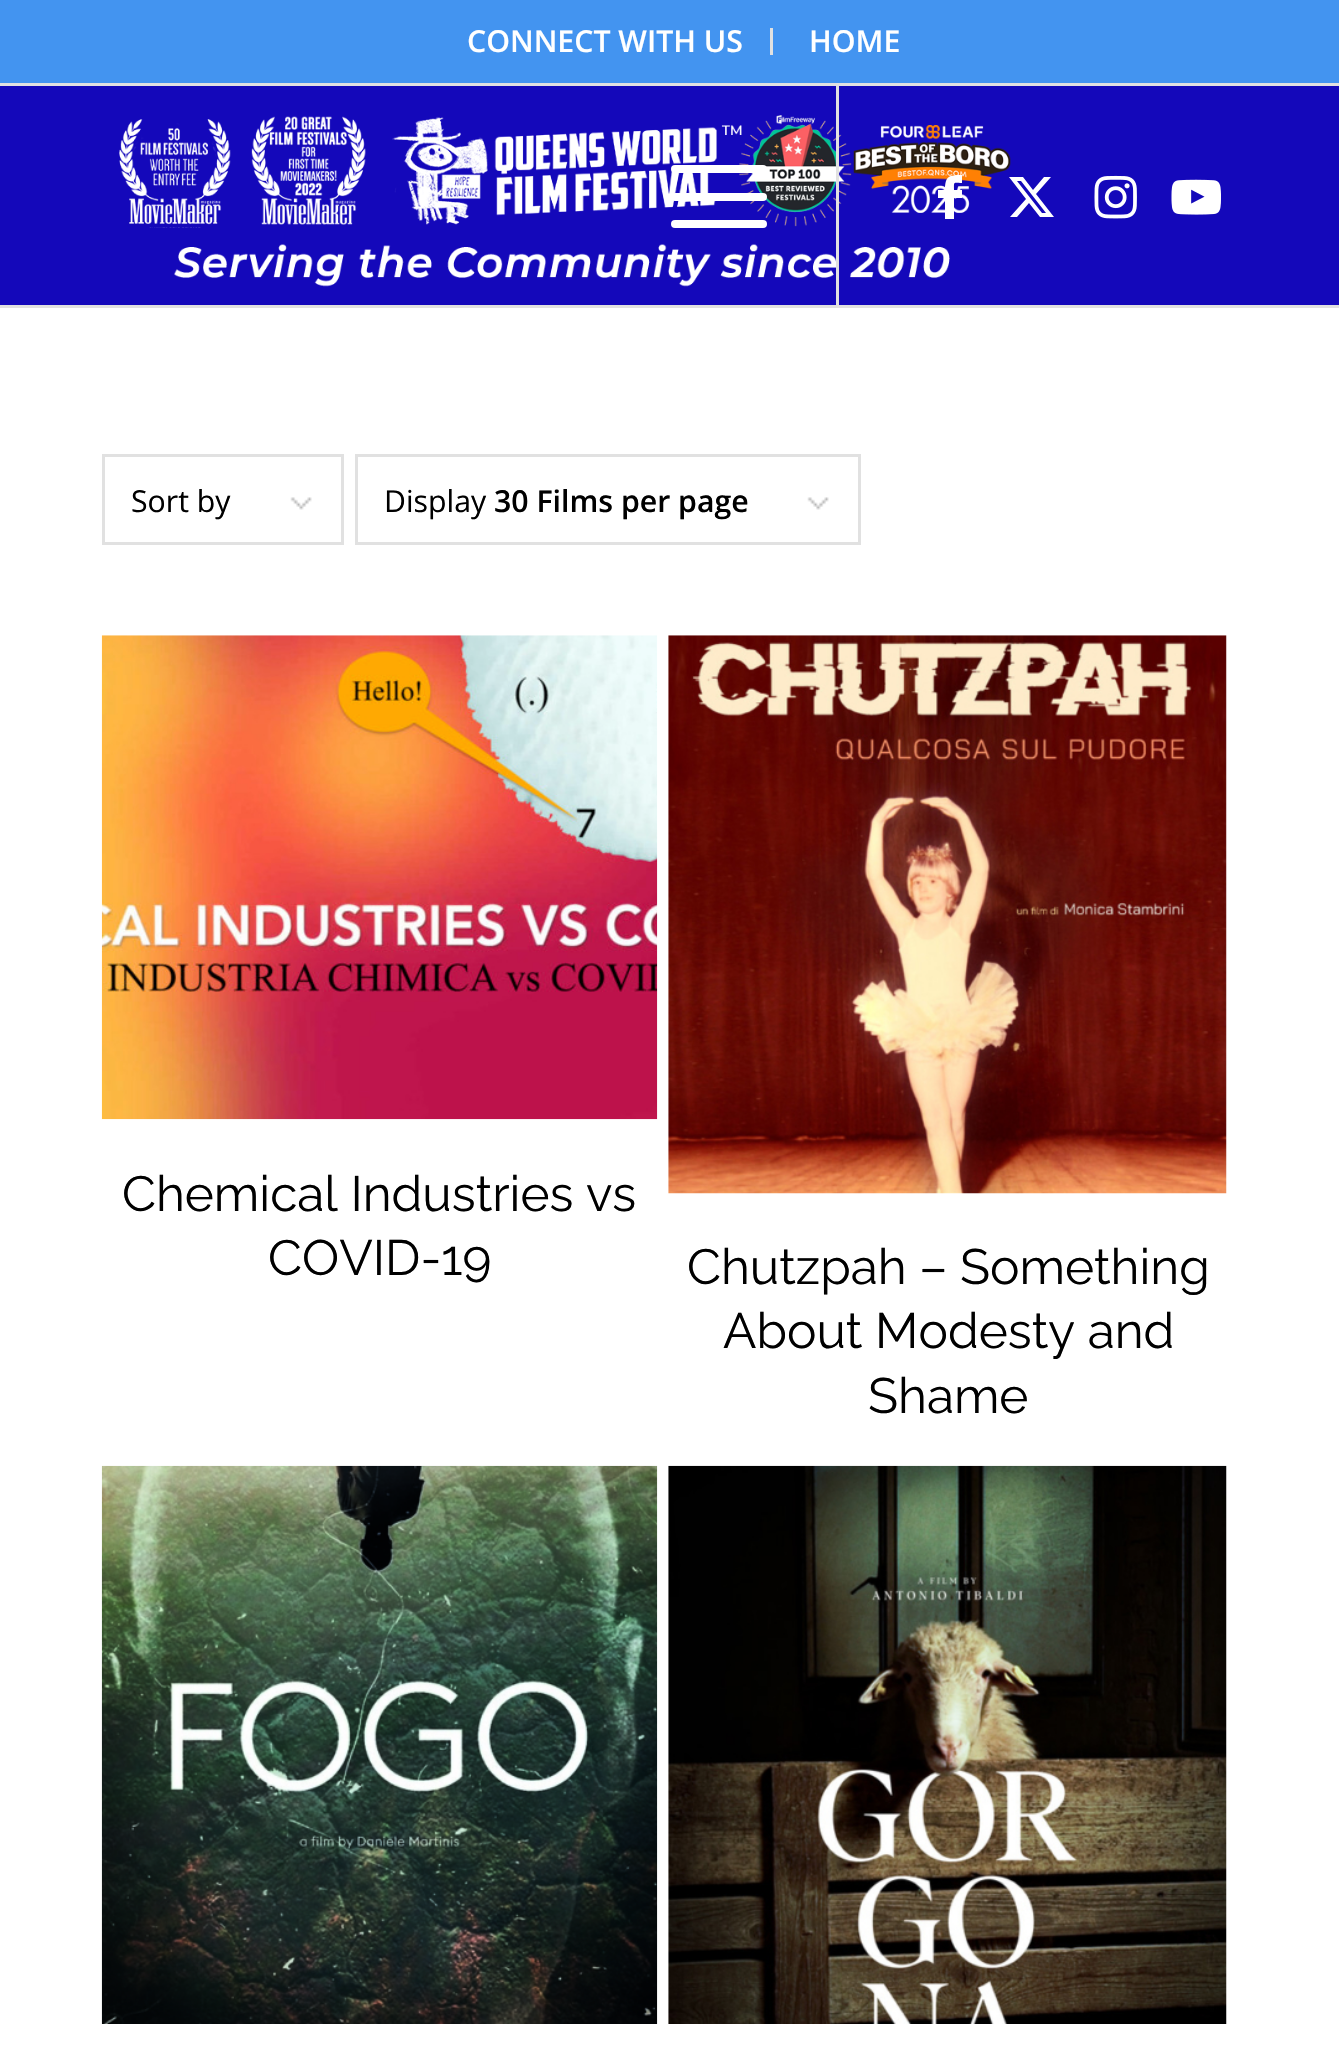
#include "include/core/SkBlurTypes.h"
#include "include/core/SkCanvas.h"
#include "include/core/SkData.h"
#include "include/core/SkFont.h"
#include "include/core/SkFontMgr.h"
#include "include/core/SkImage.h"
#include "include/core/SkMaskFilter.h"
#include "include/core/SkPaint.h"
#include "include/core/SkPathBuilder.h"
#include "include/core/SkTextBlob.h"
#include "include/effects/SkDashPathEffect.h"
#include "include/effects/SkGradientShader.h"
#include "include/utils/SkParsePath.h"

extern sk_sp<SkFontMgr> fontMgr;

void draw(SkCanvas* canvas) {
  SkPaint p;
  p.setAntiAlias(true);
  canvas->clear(SK_ColorWHITE);
  p.setColor(SkColorSetRGB(67, 148, 240));
  canvas->drawRect(SkRect::MakeLTRB(0, 0, 1339, 83), p);
  p.setColor(SkColorSetRGB(20, 8, 186));
  canvas->drawRect(SkRect::MakeLTRB(0, 86, 1339, 305), p);
  canvas->drawImageRect(SkImages::DeferredFromEncodedData(SkData::MakeFromFileName("images/3.png")), SkRect::MakeLTRB(119, 115, 1011, 287), SkSamplingOptions());
  p.setColor(SkColorSetRGB(225, 225, 225));
  canvas->drawRect(SkRect::MakeLTRB(836, 85, 839, 305), p);
  canvas->drawRect(SkRect::MakeLTRB(0, 83, 1339, 86), p);
  canvas->drawRect(SkRect::MakeLTRB(770, 28, 773, 55), p);
  canvas->drawRect(SkRect::MakeLTRB(0, 305, 1339, 308), p);
  p.setColor(SK_ColorWHITE);
  canvas->drawRoundRect(SkRect::MakeLTRB(671, 193, 767, 201), 4, 4, p);
  canvas->drawRoundRect(SkRect::MakeLTRB(671, 165, 767, 173), 4, 4, p);
  canvas->drawRoundRect(SkRect::MakeLTRB(671, 220, 767, 228), 4, 4, p);
  canvas->drawPath(SkPathBuilder().moveTo(962, 183).cubicTo(953, 183, 954, 181, 954, 190).lineTo(962, 190).lineTo(962, 198).lineTo(954, 198).lineTo(954, 219).lineTo(945, 219).lineTo(945, 198).lineTo(938, 198).lineTo(938, 190).lineTo(945, 190).cubicTo(945, 176, 949, 175, 962, 175).close().detach(), p);
  canvas->drawPath(SkPathBuilder().moveTo(1044, 177).lineTo(1051, 177).lineTo(1036, 194).lineTo(1054, 217).lineTo(1040, 217).lineTo(1029, 203).lineTo(1017, 217).lineTo(1010, 217).lineTo(1026, 199).lineTo(1009, 177).lineTo(1023, 177).lineTo(1033, 190).close().moveTo(1042, 213).lineTo(1046, 213).lineTo(1021, 181).lineTo(1017, 181).close().detach(), p);
  canvas->drawImageRect(SkImages::DeferredFromEncodedData(SkData::MakeFromFileName("images/1.png")), SkRect::MakeLTRB(1094, 175, 1137, 219), SkSamplingOptions());
  canvas->drawImageRect(SkImages::DeferredFromEncodedData(SkData::MakeFromFileName("images/2.png")), SkRect::MakeLTRB(1171, 179, 1221, 215), SkSamplingOptions());
  canvas->drawImageRect(SkImages::DeferredFromEncodedData(SkData::MakeFromFileName("images/4.png")), SkRect::MakeLTRB(290, 497, 312, 510), SkSamplingOptions());
  p.setStyle(SkPaint::kStroke_Style);
  p.setStrokeWidth(3);
  p.setColor(SkColorSetRGB(225, 225, 225));
  canvas->drawRect(SkRect::MakeLTRB(103.5f, 455.5f, 342.5f, 543.5f), p);
  canvas->drawImageRect(SkImages::DeferredFromEncodedData(SkData::MakeFromFileName("images/4.png")), SkRect::MakeLTRB(807, 497, 829, 510), SkSamplingOptions());
  canvas->drawRect(SkRect::MakeLTRB(356.5f, 455.5f, 859.5f, 543.5f), p);
  canvas->drawImageRect(SkImages::DeferredFromEncodedData(SkData::MakeFromFileName("images/5.png")), SkRect::MakeLTRB(101, 635, 658, 1120), SkSamplingOptions());
  canvas->drawImageRect(SkImages::DeferredFromEncodedData(SkData::MakeFromFileName("images/6.png")), SkRect::MakeLTRB(668, 635, 1227, 1194), SkSamplingOptions());
  canvas->drawImageRect(SkImages::DeferredFromEncodedData(SkData::MakeFromFileName("images/7.png")), SkRect::MakeLTRB(101, 1465, 658, 2024), SkSamplingOptions());
  canvas->drawImageRect(SkImages::DeferredFromEncodedData(SkData::MakeFromFileName("images/8.png")), SkRect::MakeLTRB(668, 1465, 1227, 2024), SkSamplingOptions());
  SkFont font1(fontMgr->matchFamilyStyle("Open Sans", SkFontStyle(600, SkFontStyle::kNormal_Width, SkFontStyle::kUpright_Slant)), 30.25f);
  font1.setSubpixel(true);
  p.setStyle(SkPaint::kFill_Style);
  p.setColor(SK_ColorWHITE);
  canvas->drawString("CONNECT WITH US", 467, 52, font1, p);
  canvas->drawString("HOME", 809, 52, font1, p);
  SkFont font2(fontMgr->matchFamilyStyle("Open Sans", SkFontStyle::Normal()), 30.25f);
  font2.setSubpixel(true);
  p.setColor(SK_ColorBLACK);
  canvas->drawString("Sort by", 131, 512, font2, p);
  canvas->drawString("Display", 384, 512, font2, p);
  canvas->drawString("30 Films per page", 494, 512, font1, p);
  SkFont font3(fontMgr->matchFamilyStyle("Raleway", SkFontStyle(100, SkFontStyle::kNormal_Width, SkFontStyle::kUpright_Slant)), 49.5f);
  font3.setSubpixel(true);
  canvas->drawString("Chemical Industries vs", 122, 1211, font3, p);
  canvas->drawString("COVID-19", 268, 1275, font3, p);
  canvas->drawString("Chutzpah – Something", 687, 1284, font3, p);
  canvas->drawString("About Modesty and", 723, 1348, font3, p);
  canvas->drawString("Shame", 868, 1413, font3, p);
}
